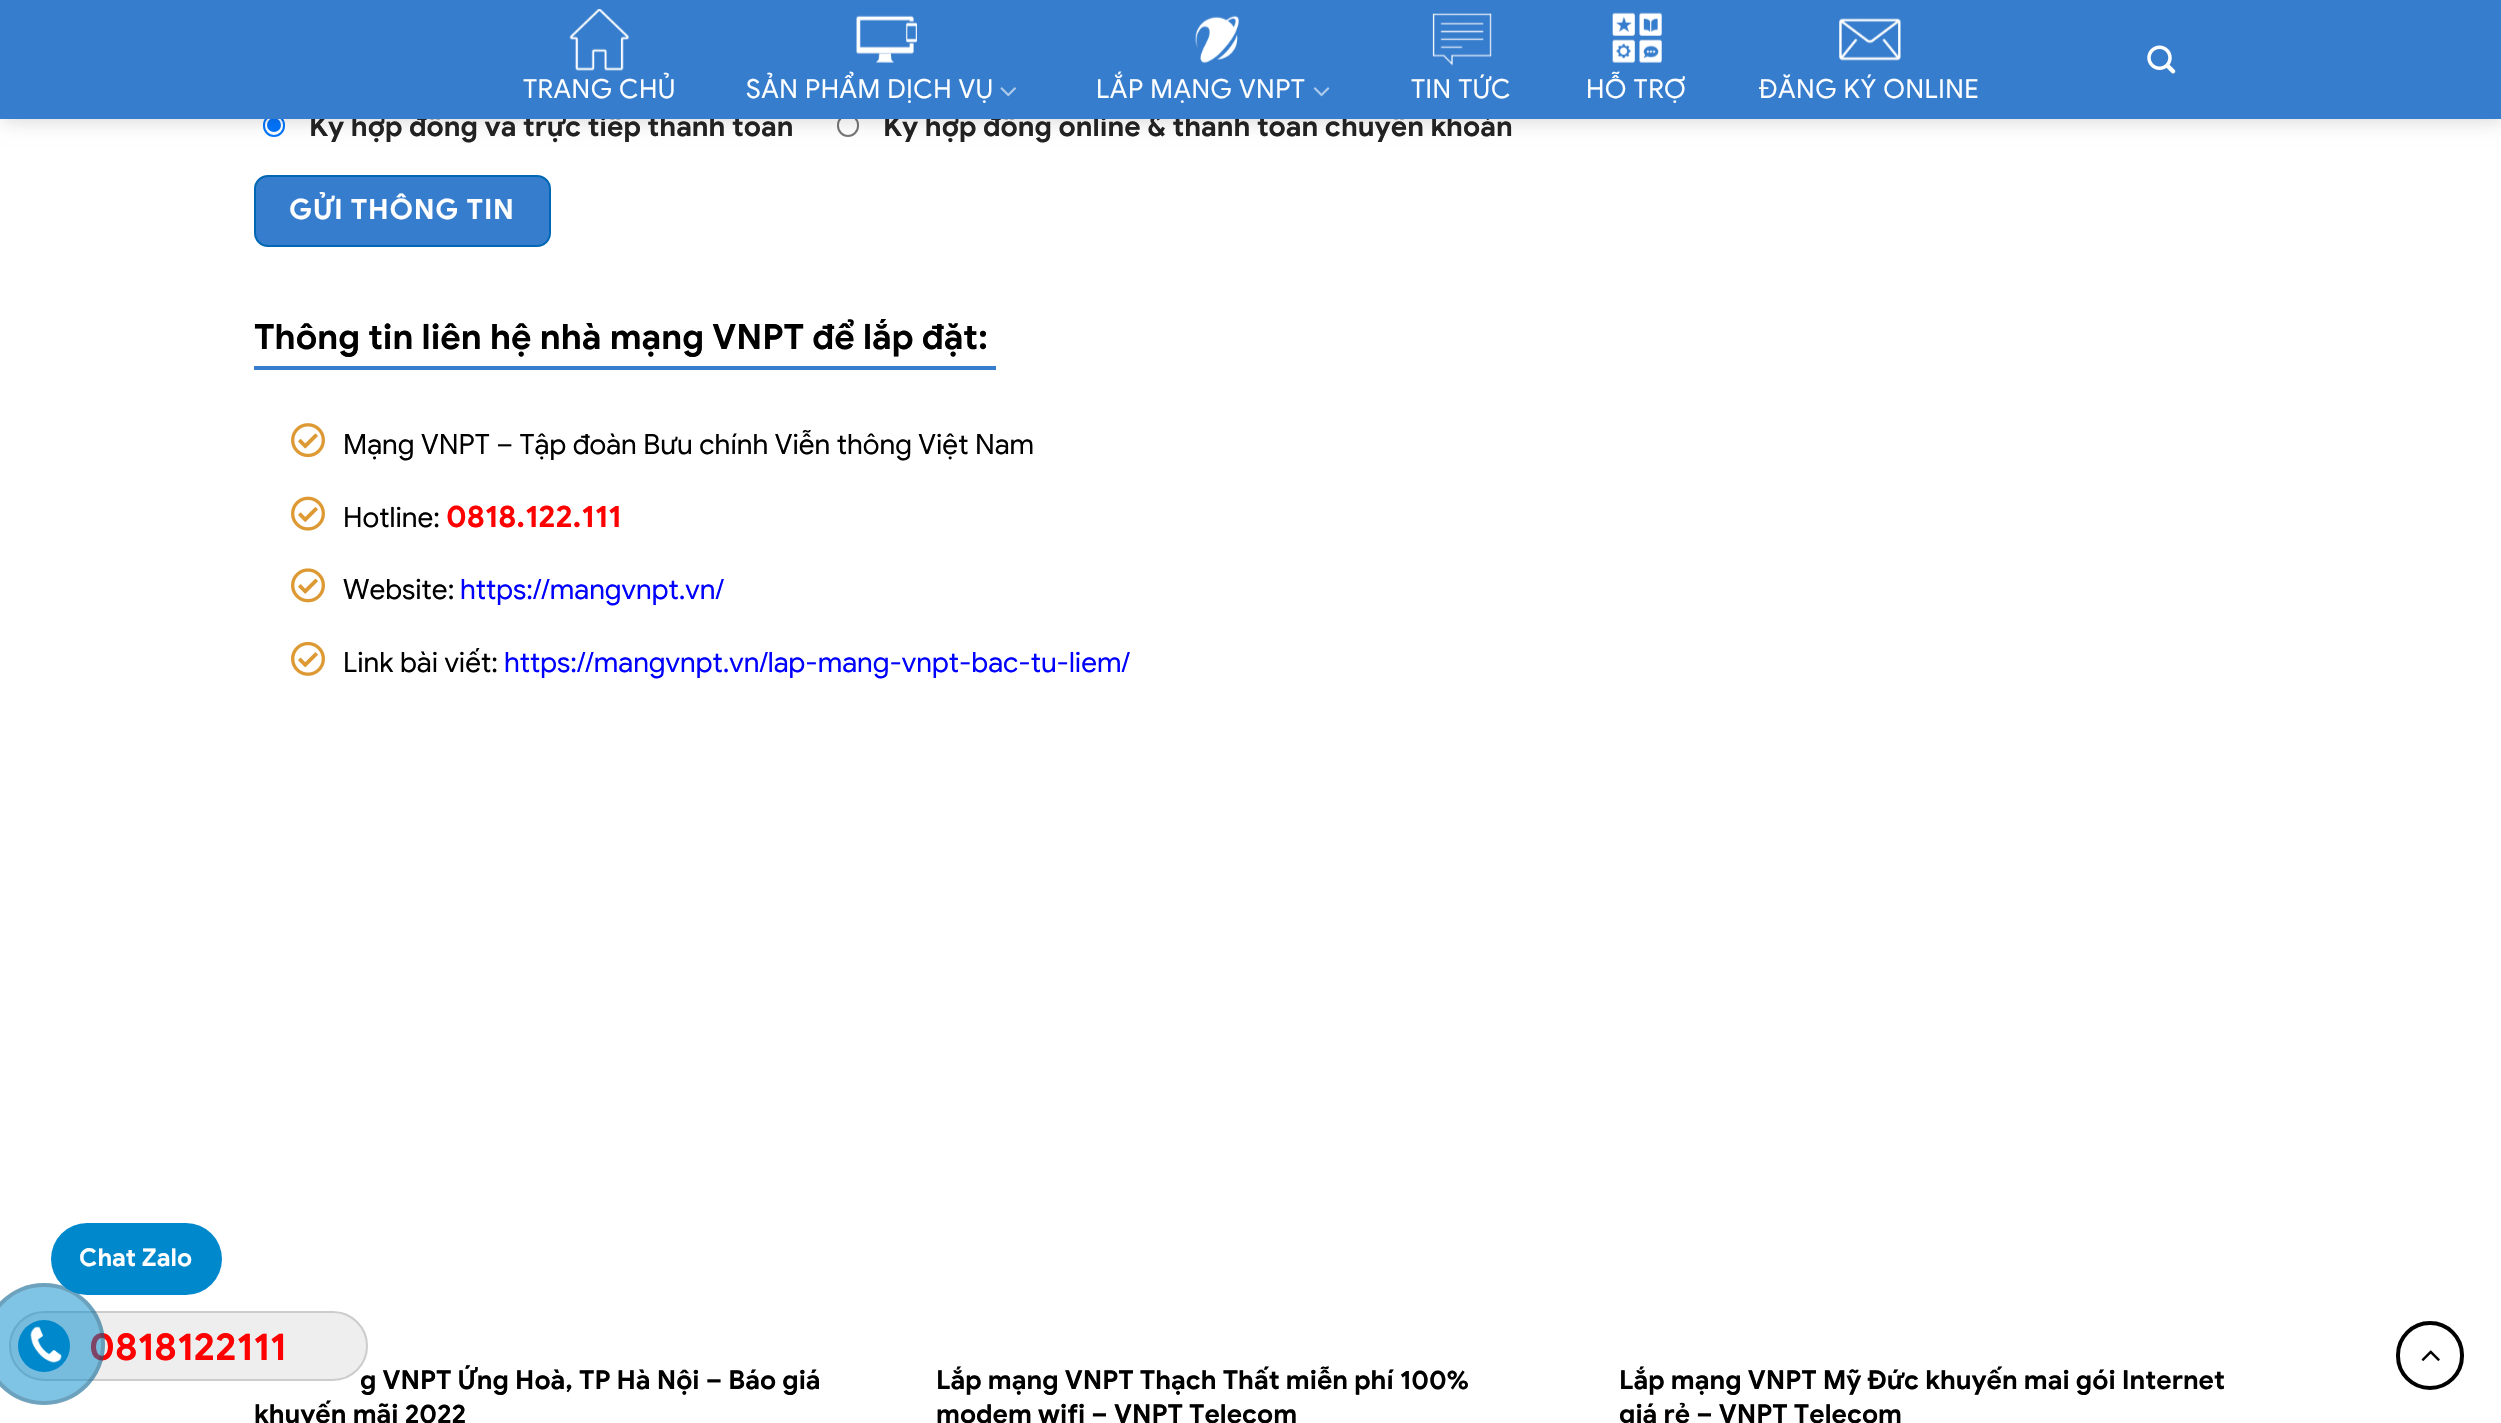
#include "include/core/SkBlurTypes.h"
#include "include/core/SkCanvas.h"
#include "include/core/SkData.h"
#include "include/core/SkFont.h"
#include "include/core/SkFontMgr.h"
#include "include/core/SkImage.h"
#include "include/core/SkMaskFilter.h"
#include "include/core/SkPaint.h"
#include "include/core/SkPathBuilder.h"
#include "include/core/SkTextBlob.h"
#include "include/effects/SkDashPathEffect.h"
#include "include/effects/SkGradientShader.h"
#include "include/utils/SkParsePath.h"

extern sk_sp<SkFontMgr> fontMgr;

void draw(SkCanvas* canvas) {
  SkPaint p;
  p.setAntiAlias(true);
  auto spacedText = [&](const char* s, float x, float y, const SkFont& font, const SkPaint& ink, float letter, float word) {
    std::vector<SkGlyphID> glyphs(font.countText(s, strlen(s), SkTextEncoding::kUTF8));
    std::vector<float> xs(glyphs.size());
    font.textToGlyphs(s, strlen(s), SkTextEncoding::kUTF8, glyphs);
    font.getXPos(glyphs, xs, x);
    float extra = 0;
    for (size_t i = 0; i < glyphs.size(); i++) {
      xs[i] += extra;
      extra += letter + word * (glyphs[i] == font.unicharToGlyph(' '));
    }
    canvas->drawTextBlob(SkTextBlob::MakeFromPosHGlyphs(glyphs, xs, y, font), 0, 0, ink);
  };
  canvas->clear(SK_ColorWHITE);
  p.setStyle(SkPaint::kStroke_Style);
  p.setStrokeWidth(2);
  p.setColor(SkColorSetRGB(0, 117, 255));
  canvas->drawRoundRect(SkRect::MakeLTRB(264, 115, 284, 136), 10, 10, p);
  p.setStyle(SkPaint::kFill_Style);
  canvas->drawCircle(274, 125, 7, p);
  p.setStyle(SkPaint::kStroke_Style);
  p.setColor(SkColorSetRGB(118, 118, 118));
  canvas->drawRoundRect(SkRect::MakeLTRB(838, 115, 858, 136), 10, 10, p);
  p.setStyle(SkPaint::kFill_Style);
  p.setColor(SkColorSetARGB(38, 0, 0, 0));
  p.setMaskFilter(SkMaskFilter::MakeBlur(kNormal_SkBlurStyle, 9));
  canvas->drawRect(SkRect::MakeLTRB(2, 2, 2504, 121), p);
  p.setMaskFilter(nullptr);
  p.setColor(SkColorSetRGB(55, 125, 205));
  canvas->drawRoundRect(SkRect::MakeLTRB(255, 176, 550, 246), 13, 13, p);
  p.setStyle(SkPaint::kStroke_Style);
  p.setColor(SkColorSetRGB(0, 103, 178));
  canvas->drawRoundRect(SkRect::MakeLTRB(255, 176, 550, 246), 13, 13, p);
  p.setStyle(SkPaint::kFill_Style);
  p.setColor(SkColorSetRGB(55, 125, 205));
  canvas->drawRect(SkRect::MakeLTRB(254, 366, 996, 370), p);
  canvas->drawImageRect(SkImages::DeferredFromEncodedData(SkData::MakeFromFileName("images/10.png")), SkRect::MakeLTRB(291, 423, 325, 458), SkSamplingOptions());
  canvas->drawImageRect(SkImages::DeferredFromEncodedData(SkData::MakeFromFileName("images/11.png")), SkRect::MakeLTRB(291, 496, 325, 531), SkSamplingOptions());
  canvas->drawImageRect(SkImages::DeferredFromEncodedData(SkData::MakeFromFileName("images/12.png")), SkRect::MakeLTRB(291, 568, 325, 603), SkSamplingOptions());
  canvas->drawImageRect(SkImages::DeferredFromEncodedData(SkData::MakeFromFileName("images/13.png")), SkRect::MakeLTRB(291, 641, 325, 676), SkSamplingOptions());
  p.setStyle(SkPaint::kStroke_Style);
  p.setStrokeWidth(4);
  p.setColor(SK_ColorBLACK);
  canvas->drawRoundRect(SkRect::MakeLTRB(2398, 1323, 2462, 1388), 32, 32, p);
  canvas->drawImageRect(SkImages::DeferredFromEncodedData(SkData::MakeFromFileName("images/14.png")), SkRect::MakeLTRB(2421, 1350, 2440, 1361), SkSamplingOptions());
  SkFont font1(fontMgr->matchFamilyStyle("Google Sans", SkFontStyle::Bold()), 28);
  font1.setSubpixel(true);
  p.setStyle(SkPaint::kFill_Style);
  p.setColor(SkColorSetRGB(34, 34, 34));
  canvas->drawString("Ký hợp đồng và trực tiếp thanh toán", 309, 136, font1, p);
  canvas->drawString("Ký hợp đồng online & thanh toán chuyển khoản", 883, 136, font1, p);
  p.setColor(SkColorSetRGB(55, 125, 205));
  canvas->drawRect(SkRect::MakeLTRB(0, 0, 2501, 119), p);
  canvas->drawImageRect(SkImages::DeferredFromEncodedData(SkData::MakeFromFileName("images/1.png")), SkRect::MakeLTRB(2147, 45, 2176, 74), SkSamplingOptions());
  SkFont font2(fontMgr->matchFamilyStyle("Google Sans", SkFontStyle::Normal()), 26.25f);
  font2.setSubpixel(true);
  p.setColor(SK_ColorWHITE);
  spacedText("ĐĂNG KÝ ONLINE", 1759, 98, font2, p, 0.5f, 0);
  canvas->drawImageRect(SkImages::DeferredFromEncodedData(SkData::MakeFromFileName("images/9.png")), SkRect::MakeLTRB(1839, 18, 1901, 61), SkSamplingOptions());
  spacedText("HỖ TRỢ", 1586, 98, font2, p, 0.5f, 0);
  canvas->drawImageRect(SkImages::DeferredFromEncodedData(SkData::MakeFromFileName("images/8.png")), SkRect::MakeLTRB(1612, 12, 1662, 63), SkSamplingOptions());
  spacedText("TIN TỨC", 1411, 98, font2, p, 0.5f, 0);
  canvas->drawImageRect(SkImages::DeferredFromEncodedData(SkData::MakeFromFileName("images/7.png")), SkRect::MakeLTRB(1432, 13, 1492, 66), SkSamplingOptions());
  canvas->drawImageRect(SkImages::DeferredFromEncodedData(SkData::MakeFromFileName("images/6.png")), SkRect::MakeLTRB(1313, 87, 1330, 97), SkSamplingOptions());
  spacedText("LẮP MẠNG VNPT", 1096, 98, font2, p, 0.5f, 0);
  canvas->drawImageRect(SkImages::DeferredFromEncodedData(SkData::MakeFromFileName("images/5.png")), SkRect::MakeLTRB(1195, 15, 1239, 63), SkSamplingOptions());
  canvas->drawImageRect(SkImages::DeferredFromEncodedData(SkData::MakeFromFileName("images/4.png")), SkRect::MakeLTRB(1000, 87, 1016, 97), SkSamplingOptions());
  spacedText("SẢN PHẨM DỊCH VỤ", 746, 98, font2, p, 0.5f, 0);
  canvas->drawImageRect(SkImages::DeferredFromEncodedData(SkData::MakeFromFileName("images/3.png")), SkRect::MakeLTRB(856, 15, 917, 63), SkSamplingOptions());
  spacedText("TRANG CHỦ", 523, 98, font2, p, 0.5f, 0);
  canvas->drawImageRect(SkImages::DeferredFromEncodedData(SkData::MakeFromFileName("images/2.png")), SkRect::MakeLTRB(569, 9, 630, 71), SkSamplingOptions());
  spacedText("GỬI THÔNG TIN", 289, 219, font1, p, 0.8f, 0);
  SkFont font3(fontMgr->matchFamilyStyle("Google Sans", SkFontStyle::Bold()), 35);
  font3.setSubpixel(true);
  p.setColor(SK_ColorBLACK);
  canvas->drawString("Thông tin liên hệ nhà mạng VNPT để lắp đặt:", 254, 349, font3, p);
  SkFont font4(fontMgr->matchFamilyStyle("Google Sans", SkFontStyle::Normal()), 28);
  font4.setSubpixel(true);
  canvas->drawString("Mạng VNPT – Tập đoàn Bưu chính Viễn thông Việt Nam", 343, 454, font4, p);
  canvas->drawString("Hotline:", 343, 527, font4, p);
  SkFont font5(fontMgr->matchFamilyStyle("Google Sans", SkFontStyle::Bold()), 30.75f);
  font5.setSubpixel(true);
  p.setColor(SkColorSetRGB(255, 0, 0));
  canvas->drawString("0818.122.111", 446, 527, font5, p);
  p.setColor(SK_ColorBLACK);
  canvas->drawString("Website:", 343, 599, font4, p);
  p.setColor(SkColorSetRGB(0, 0, 255));
  canvas->drawString("https://mangvnpt.vn/", 460, 599, font4, p);
  p.setColor(SK_ColorBLACK);
  canvas->drawString("Link bài viết:", 343, 672, font4, p);
  p.setColor(SkColorSetRGB(0, 0, 255));
  canvas->drawString("https://mangvnpt.vn/lap-mang-vnpt-bac-tu-liem/", 504, 672, font4, p);
  SkFont font6(fontMgr->matchFamilyStyle("Google Sans", SkFontStyle::Bold()), 26.25f);
  font6.setSubpixel(true);
  p.setColor(SK_ColorBLACK);
  canvas->drawString("g VNPT Ứng Hoà, TP Hà Nội – Báo giá", 360, 1389, font6, p);
  canvas->drawString("khuyến mãi 2022", 254, 1423, font6, p);
  canvas->drawString("Lắp mạng VNPT Thạch Thất miễn phí 100%", 936, 1389, font6, p);
  canvas->drawString("modem wifi – VNPT Telecom", 936, 1423, font6, p);
  canvas->drawString("Lắp mạng VNPT Mỹ Đức khuyến mai gói Internet", 1619, 1389, font6, p);
  canvas->drawString("giá rẻ – VNPT Telecom", 1619, 1423, font6, p);
  p.setColor(SkColorSetRGB(238, 238, 238));
  canvas->drawRoundRect(SkRect::MakeLTRB(10, 1312, 367, 1380), 34, 34, p);
  p.setStyle(SkPaint::kStroke_Style);
  p.setStrokeWidth(2);
  p.setColor(SkColorSetRGB(204, 204, 204));
  canvas->drawRoundRect(SkRect::MakeLTRB(10, 1312, 367, 1380), 34, 34, p);
  SkFont font7(fontMgr->matchFamilyStyle("Google Sans", SkFontStyle::Bold()), 38.5f);
  font7.setSubpixel(true);
  p.setStyle(SkPaint::kFill_Style);
  p.setColor(SkColorSetRGB(255, 0, 0));
  canvas->drawString("0818122111", 89, 1360, font7, p);
  p.setColor(SkColorSetARGB(128, 0, 136, 204));
  canvas->drawCircle(44, 1344, 61, p);
  p.setStyle(SkPaint::kStroke_Style);
  p.setStrokeWidth(4);
  p.setColor(SkColorSetARGB(51, 30, 30, 30));
  canvas->drawCircle(44, 1344, 59, p);
  p.setStyle(SkPaint::kFill_Style);
  p.setColor(SkColorSetRGB(0, 136, 204));
  canvas->drawRoundRect(SkRect::MakeLTRB(51, 1223, 222, 1295), 36, 36, p);
  SkFont font8(fontMgr->matchFamilyStyle("Google Sans", SkFontStyle::Bold()), 24.5f);
  font8.setSubpixel(true);
  p.setColor(SK_ColorWHITE);
  canvas->drawString("Chat Zalo", 79, 1266, font8, p);
  p.setColor(SkColorSetRGB(0, 136, 204));
  canvas->drawCircle(44, 1346, 26, p);
  canvas->drawImageRect(SkImages::DeferredFromEncodedData(SkData::MakeFromFileName("images/15.png")), SkRect::MakeLTRB(30, 1326, 62, 1363), SkSamplingOptions());
}
